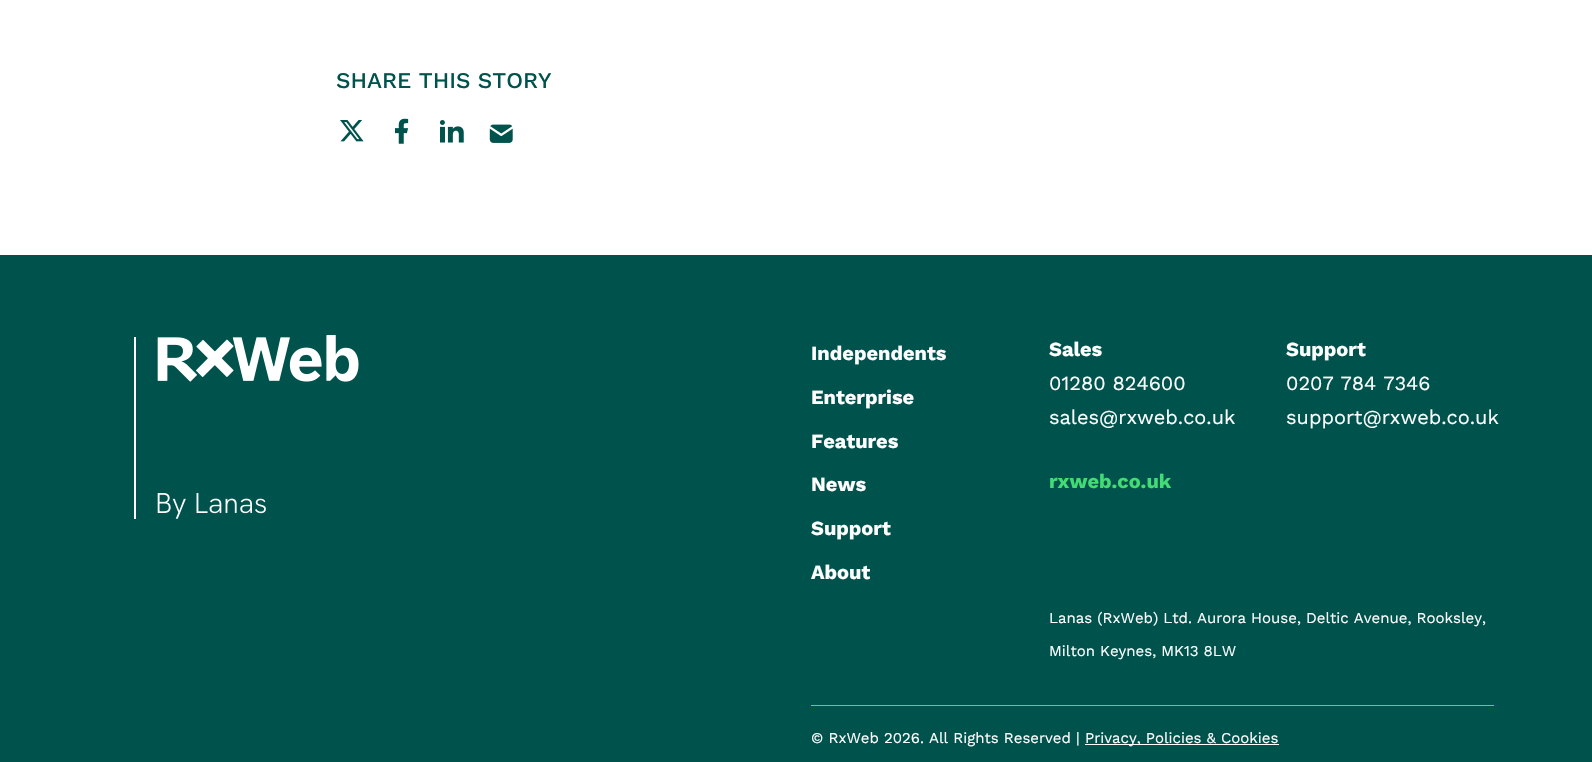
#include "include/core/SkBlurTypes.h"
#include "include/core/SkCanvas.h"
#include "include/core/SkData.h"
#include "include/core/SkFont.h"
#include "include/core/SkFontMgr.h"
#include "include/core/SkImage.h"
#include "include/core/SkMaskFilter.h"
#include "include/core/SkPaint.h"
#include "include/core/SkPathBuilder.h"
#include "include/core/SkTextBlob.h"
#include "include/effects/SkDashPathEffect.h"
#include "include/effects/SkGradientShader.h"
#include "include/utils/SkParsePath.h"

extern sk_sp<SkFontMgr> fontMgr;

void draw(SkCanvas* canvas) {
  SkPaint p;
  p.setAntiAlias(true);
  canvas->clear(SK_ColorWHITE);
  canvas->drawImageRect(SkImages::DeferredFromEncodedData(SkData::MakeFromFileName("images/1.png")), SkRect::MakeLTRB(340, 120, 364, 142), SkSamplingOptions());
  canvas->drawImageRect(SkImages::DeferredFromEncodedData(SkData::MakeFromFileName("images/2.png")), SkRect::MakeLTRB(395, 118, 409, 144), SkSamplingOptions());
  canvas->drawImageRect(SkImages::DeferredFromEncodedData(SkData::MakeFromFileName("images/3.png")), SkRect::MakeLTRB(439, 120, 464, 143), SkSamplingOptions());
  canvas->drawImageRect(SkImages::DeferredFromEncodedData(SkData::MakeFromFileName("images/4.png")), SkRect::MakeLTRB(489, 124, 513, 143), SkSamplingOptions());
  p.setColor(SkColorSetRGB(0, 83, 76));
  canvas->drawRect(SkRect::MakeLTRB(0, 255, 1592, 762), p);
  canvas->drawImageRect(SkImages::DeferredFromEncodedData(SkData::MakeFromFileName("images/5.png")), SkRect::MakeLTRB(134, 335, 359, 519), SkSamplingOptions());
  p.setColor(SkColorSetRGB(66, 219, 116));
  canvas->drawRect(SkRect::MakeLTRB(811, 705, 1494, 706), p);
  p.setColor(SK_ColorWHITE);
  canvas->drawRect(SkRect::MakeLTRB(1085, 744, 1279, 745), p);
  SkFont font1(fontMgr->matchFamilyStyle("Work Sans", SkFontStyle(500, SkFontStyle::kNormal_Width, SkFontStyle::kUpright_Slant)), 22.5f);
  font1.setSubpixel(true);
  p.setColor(SkColorSetRGB(0, 83, 76));
  canvas->drawString("SHARE THIS STORY", 336, 88, font1, p);
  SkFont font2(fontMgr->matchFamilyStyle("Work Sans", SkFontStyle::Bold()), 20);
  font2.setSubpixel(true);
  p.setColor(SK_ColorWHITE);
  canvas->drawString("Independents", 811, 360, font2, p);
  canvas->drawString("Enterprise", 811, 404, font2, p);
  canvas->drawString("Features", 811, 448, font2, p);
  canvas->drawString("News", 811, 491, font2, p);
  canvas->drawString("Support", 811, 535, font2, p);
  canvas->drawString("About", 811, 579, font2, p);
  canvas->drawString("Sales", 1049, 356, font2, p);
  SkFont font3(fontMgr->matchFamilyStyle("Work Sans", SkFontStyle::Normal()), 20);
  font3.setSubpixel(true);
  canvas->drawString("01280 824600", 1049, 390, font3, p);
  canvas->drawString("sales@rxweb.co.uk", 1049, 424, font3, p);
  p.setColor(SkColorSetRGB(66, 219, 116));
  canvas->drawString("rxweb.co.uk", 1049, 488, font2, p);
  p.setColor(SK_ColorWHITE);
  canvas->drawString("Support", 1286, 356, font2, p);
  canvas->drawString("0207 784 7346", 1286, 390, font3, p);
  canvas->drawString("support@rxweb.co.uk", 1286, 424, font3, p);
  SkFont font4(fontMgr->matchFamilyStyle("Work Sans", SkFontStyle::Normal()), 15);
  font4.setSubpixel(true);
  canvas->drawString("Lanas (RxWeb) Ltd. Aurora House, Deltic Avenue, Rooksley,", 1049, 623, font4, p);
  canvas->drawString("Milton Keynes, MK13 8LW", 1049, 656, font4, p);
  canvas->drawString("© RxWeb 2026. All Rights Reserved |", 811, 743, font4, p);
  canvas->drawString("Privacy, Policies & Cookies", 1085, 743, font4, p);
}
